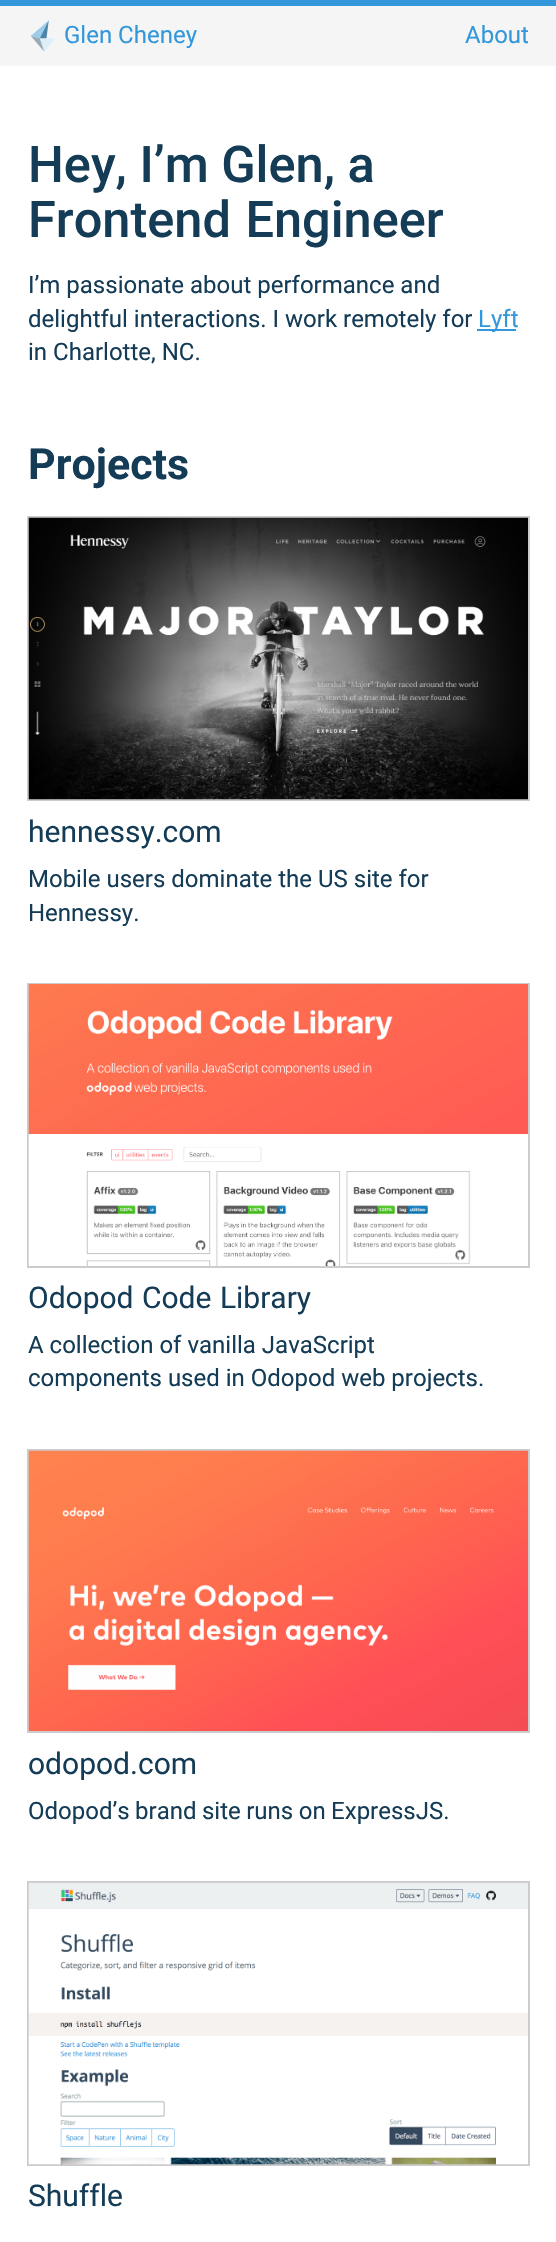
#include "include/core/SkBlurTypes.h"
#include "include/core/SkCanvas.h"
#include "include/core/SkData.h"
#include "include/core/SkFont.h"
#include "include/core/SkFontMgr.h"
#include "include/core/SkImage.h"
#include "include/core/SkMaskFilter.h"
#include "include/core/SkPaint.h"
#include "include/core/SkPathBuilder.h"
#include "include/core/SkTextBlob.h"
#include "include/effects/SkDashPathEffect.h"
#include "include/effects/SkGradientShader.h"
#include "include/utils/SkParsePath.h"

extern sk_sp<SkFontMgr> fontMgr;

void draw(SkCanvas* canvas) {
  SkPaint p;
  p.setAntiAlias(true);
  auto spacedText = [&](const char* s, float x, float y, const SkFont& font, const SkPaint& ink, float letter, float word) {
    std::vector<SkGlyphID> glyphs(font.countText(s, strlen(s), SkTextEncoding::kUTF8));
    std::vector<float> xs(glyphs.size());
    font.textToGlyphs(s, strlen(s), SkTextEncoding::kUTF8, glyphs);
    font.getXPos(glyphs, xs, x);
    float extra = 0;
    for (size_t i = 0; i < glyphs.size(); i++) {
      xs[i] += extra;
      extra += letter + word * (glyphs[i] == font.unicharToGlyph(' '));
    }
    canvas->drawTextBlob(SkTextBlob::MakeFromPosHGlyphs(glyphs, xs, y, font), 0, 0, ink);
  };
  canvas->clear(SK_ColorWHITE);
  p.setColor(SkColorSetRGB(245, 245, 245));
  canvas->drawRect(SkRect::MakeLTRB(0, 6, 556, 66), p);
  p.setColor(SkColorSetRGB(51, 152, 219));
  canvas->drawRect(SkRect::MakeLTRB(0, 0, 556, 6), p);
  canvas->drawImageRect(SkImages::DeferredFromEncodedData(SkData::MakeFromFileName("images/1.png")), SkRect::MakeLTRB(31, 20, 55, 52), SkSamplingOptions());
  canvas->drawRect(SkRect::MakeLTRB(477, 329, 516, 331), p);
  p.setStyle(SkPaint::kStroke_Style);
  p.setStrokeWidth(2);
  p.setColor(SkColorSetRGB(204, 204, 204));
  canvas->drawRect(SkRect::MakeLTRB(28, 517, 529, 800), p);
  canvas->drawImageRect(SkImages::DeferredFromEncodedData(SkData::MakeFromFileName("images/2.png")), SkRect::MakeLTRB(28, 517, 528, 800), SkSamplingOptions());
  canvas->drawRect(SkRect::MakeLTRB(28, 984, 529, 1267), p);
  canvas->drawImageRect(SkImages::DeferredFromEncodedData(SkData::MakeFromFileName("images/3.png")), SkRect::MakeLTRB(28, 984, 528, 1266), SkSamplingOptions());
  canvas->drawRect(SkRect::MakeLTRB(28, 1450, 529, 1732), p);
  canvas->drawImageRect(SkImages::DeferredFromEncodedData(SkData::MakeFromFileName("images/4.png")), SkRect::MakeLTRB(28, 1450, 528, 1731), SkSamplingOptions());
  canvas->drawRect(SkRect::MakeLTRB(28, 1882, 529, 2165), p);
  canvas->drawImageRect(SkImages::DeferredFromEncodedData(SkData::MakeFromFileName("images/5.png")), SkRect::MakeLTRB(28, 1882, 528, 2165), SkSamplingOptions());
  SkFont font1(fontMgr->matchFamilyStyle("Roboto", SkFontStyle::Normal()), 24);
  font1.setSubpixel(true);
  p.setStyle(SkPaint::kFill_Style);
  p.setColor(SkColorSetRGB(51, 152, 219));
  canvas->drawString("Glen Cheney", 64, 43, font1, p);
  canvas->drawString("About", 465, 43, font1, p);
  SkFont font2(fontMgr->matchFamilyStyle("Roboto", SkFontStyle(500, SkFontStyle::kNormal_Width, SkFontStyle::kUpright_Slant)), 50.5f);
  font2.setSubpixel(true);
  p.setColor(SkColorSetRGB(21, 60, 86));
  canvas->drawString("Hey, I’m Glen, a", 28, 182, font2, p);
  spacedText("Frontend Engineer", 28, 237, font2, p, 0, 2);
  canvas->drawString("I’m passionate about performance and", 28, 293, font1, p);
  canvas->drawString("delightful interactions. I work remotely for", 28, 327, font1, p);
  p.setColor(SkColorSetRGB(51, 152, 219));
  canvas->drawString("Lyft", 478, 327, font1, p);
  p.setColor(SkColorSetRGB(21, 60, 86));
  canvas->drawString("in Charlotte, NC.", 28, 360, font1, p);
  SkFont font3(fontMgr->matchFamilyStyle("Roboto", SkFontStyle::Bold()), 43);
  font3.setSubpixel(true);
  canvas->drawString("Projects", 28, 479, font3, p);
  SkFont font4(fontMgr->matchFamilyStyle("Roboto", SkFontStyle::Normal()), 30);
  font4.setSubpixel(true);
  canvas->drawString("hennessy.com", 28, 842, font4, p);
  canvas->drawString("Mobile users dominate the US site for", 28, 887, font1, p);
  canvas->drawString("Hennessy.", 28, 921, font1, p);
  spacedText("Odopod Code Library", 28, 1308, font4, p, 0, 1);
  canvas->drawString("A collection of vanilla JavaScript", 28, 1353, font1, p);
  canvas->drawString("components used in Odopod web projects.", 28, 1386, font1, p);
  canvas->drawString("odopod.com", 28, 1774, font4, p);
  spacedText("Odopod’s brand site runs on ExpressJS.", 28, 1819, font1, p, 0, -0.5f);
  canvas->drawString("Shuffle", 28, 2206, font4, p);
}
